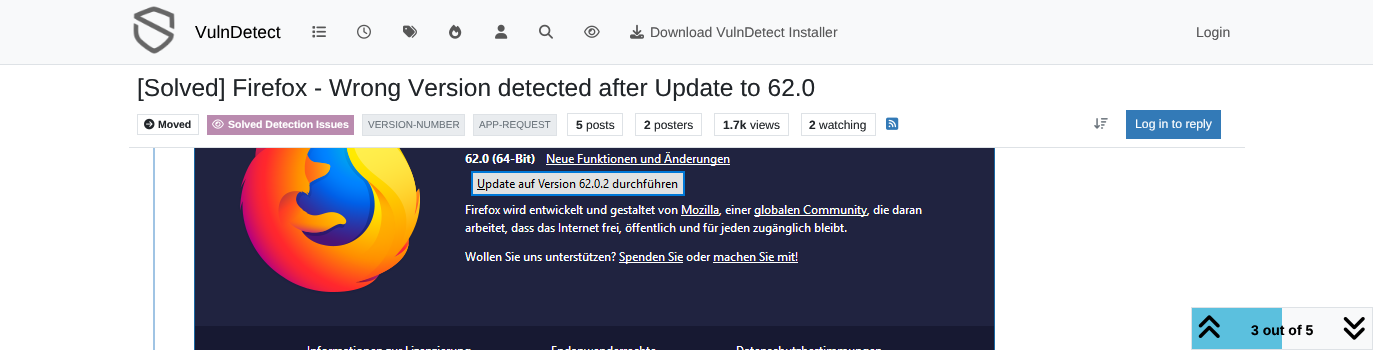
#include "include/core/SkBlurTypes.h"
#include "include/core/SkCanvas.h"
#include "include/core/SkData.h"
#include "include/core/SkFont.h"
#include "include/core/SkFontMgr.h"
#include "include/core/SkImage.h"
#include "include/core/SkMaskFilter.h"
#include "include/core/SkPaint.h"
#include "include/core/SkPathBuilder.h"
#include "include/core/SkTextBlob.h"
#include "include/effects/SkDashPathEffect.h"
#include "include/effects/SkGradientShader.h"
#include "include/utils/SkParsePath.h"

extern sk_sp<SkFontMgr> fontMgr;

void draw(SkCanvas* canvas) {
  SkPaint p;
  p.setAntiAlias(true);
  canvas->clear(SK_ColorWHITE);
  p.setColor(SkColorSetRGB(248, 249, 250));
  canvas->drawRect(SkRect::MakeLTRB(0, 0, 1373, 64), p);
  p.setColor(SkColorSetRGB(222, 226, 230));
  canvas->drawRect(SkRect::MakeLTRB(0, 64, 1373, 65), p);
  canvas->drawImageRect(SkImages::DeferredFromEncodedData(SkData::MakeFromFileName("images/1.png")), SkRect::MakeLTRB(133, 6, 175, 54), SkSamplingOptions());
  canvas->drawImageRect(SkImages::DeferredFromEncodedData(SkData::MakeFromFileName("images/2.png")), SkRect::MakeLTRB(312, 26, 326, 38), SkSamplingOptions());
  canvas->drawImageRect(SkImages::DeferredFromEncodedData(SkData::MakeFromFileName("images/3.png")), SkRect::MakeLTRB(357, 24, 371, 39), SkSamplingOptions());
  canvas->drawImageRect(SkImages::DeferredFromEncodedData(SkData::MakeFromFileName("images/4.png")), SkRect::MakeLTRB(403, 25, 417, 38), SkSamplingOptions());
  canvas->drawImageRect(SkImages::DeferredFromEncodedData(SkData::MakeFromFileName("images/5.png")), SkRect::MakeLTRB(449, 24, 462, 39), SkSamplingOptions());
  canvas->drawImageRect(SkImages::DeferredFromEncodedData(SkData::MakeFromFileName("images/6.png")), SkRect::MakeLTRB(495, 24, 508, 39), SkSamplingOptions());
  canvas->drawImageRect(SkImages::DeferredFromEncodedData(SkData::MakeFromFileName("images/7.png")), SkRect::MakeLTRB(539, 24, 553, 39), SkSamplingOptions());
  canvas->drawImageRect(SkImages::DeferredFromEncodedData(SkData::MakeFromFileName("images/8.png")), SkRect::MakeLTRB(584, 25, 600, 38), SkSamplingOptions());
  canvas->drawImageRect(SkImages::DeferredFromEncodedData(SkData::MakeFromFileName("images/9.png")), SkRect::MakeLTRB(630, 24, 644, 39), SkSamplingOptions());
  canvas->drawRect(SkRect::MakeLTRB(129, 147, 1245, 148), p);
  p.setStyle(SkPaint::kStroke_Style);
  p.setStrokeWidth(1);
  canvas->drawRect(SkRect::MakeLTRB(137.5f, 114.5f, 198.5f, 134.5f), p);
  canvas->drawImageRect(SkImages::DeferredFromEncodedData(SkData::MakeFromFileName("images/10.png")), SkRect::MakeLTRB(144, 118, 155, 130), SkSamplingOptions());
  p.setStyle(SkPaint::kFill_Style);
  p.setColor(SkColorSetRGB(186, 139, 175));
  canvas->drawRect(SkRect::MakeLTRB(207, 115, 354, 135), p);
  canvas->drawImageRect(SkImages::DeferredFromEncodedData(SkData::MakeFromFileName("images/11.png")), SkRect::MakeLTRB(212, 119, 224, 129), SkSamplingOptions());
  p.setColor(SkColorSetRGB(233, 236, 239));
  canvas->drawRect(SkRect::MakeLTRB(362.5f, 114.5f, 464.5f, 135.5f), p);
  p.setStyle(SkPaint::kStroke_Style);
  p.setColor(SkColorSetRGB(222, 226, 230));
  canvas->drawRect(SkRect::MakeLTRB(362.5f, 114.5f, 464.5f, 135.5f), p);
  p.setStyle(SkPaint::kFill_Style);
  p.setColor(SkColorSetRGB(233, 236, 239));
  canvas->drawRect(SkRect::MakeLTRB(473.5f, 114.5f, 556.5f, 135.5f), p);
  p.setStyle(SkPaint::kStroke_Style);
  p.setColor(SkColorSetRGB(222, 226, 230));
  canvas->drawRect(SkRect::MakeLTRB(473.5f, 114.5f, 556.5f, 135.5f), p);
  canvas->drawRect(SkRect::MakeLTRB(567.5f, 113.5f, 622.5f, 135.5f), p);
  canvas->drawRect(SkRect::MakeLTRB(635.5f, 113.5f, 701.5f, 135.5f), p);
  canvas->drawRect(SkRect::MakeLTRB(714.5f, 113.5f, 788.5f, 135.5f), p);
  canvas->drawRect(SkRect::MakeLTRB(801.5f, 113.5f, 875.5f, 135.5f), p);
  canvas->drawImageRect(SkImages::DeferredFromEncodedData(SkData::MakeFromFileName("images/12.png")), SkRect::MakeLTRB(886, 117, 899, 130), SkSamplingOptions());
  canvas->drawImageRect(SkImages::DeferredFromEncodedData(SkData::MakeFromFileName("images/13.png")), SkRect::MakeLTRB(1094, 118, 1108, 129), SkSamplingOptions());
  p.setStyle(SkPaint::kFill_Style);
  p.setColor(SkColorSetRGB(51, 122, 183));
  canvas->drawRect(SkRect::MakeLTRB(1126, 110, 1221, 139), p);
  p.setColor(SkColorSetRGB(160, 196, 228));
  canvas->drawRect(SkRect::MakeLTRB(153, 148, 155, 350), p);
  canvas->drawImageRect(SkImages::DeferredFromEncodedData(SkData::MakeFromFileName("images/14.png")), SkRect::MakeLTRB(194, 148, 995, 350), SkSamplingOptions());
  p.setColor(SkColorSetRGB(248, 249, 250));
  canvas->drawRect(SkRect::MakeLTRB(1282, 308, 1372, 349), p);
  p.setStyle(SkPaint::kStroke_Style);
  p.setColor(SkColorSetRGB(222, 226, 230));
  canvas->drawRect(SkRect::MakeLTRB(1191.5f, 307.5f, 1372.5f, 349.5f), p);
  p.setStyle(SkPaint::kFill_Style);
  p.setColor(SkColorSetRGB(91, 192, 222));
  canvas->drawRect(SkRect::MakeLTRB(1192, 308, 1282, 349), p);
  canvas->drawImageRect(SkImages::DeferredFromEncodedData(SkData::MakeFromFileName("images/15.png")), SkRect::MakeLTRB(1198, 315, 1220, 338), SkSamplingOptions());
  canvas->drawImageRect(SkImages::DeferredFromEncodedData(SkData::MakeFromFileName("images/16.png")), SkRect::MakeLTRB(1343, 317, 1365, 340), SkSamplingOptions());
  SkFont font1(fontMgr->matchFamilyStyle("Liberation Sans", SkFontStyle::Normal()), 17.5f);
  font1.setSubpixel(true);
  p.setColor(SK_ColorBLACK);
  canvas->drawString("VulnDetect", 195, 38, font1, p);
  SkFont font2(fontMgr->matchFamilyStyle("Liberation Sans", SkFontStyle::Normal()), 14);
  font2.setSubpixel(true);
  p.setColor(SkColorSetRGB(87, 87, 88));
  canvas->drawString("Download VulnDetect Installer", 650, 37, font2, p);
  canvas->drawString("Login", 1196, 37, font2, p);
  SkFont font3(fontMgr->matchFamilyStyle("Liberation Sans", SkFontStyle::Normal()), 24.5f);
  font3.setSubpixel(true);
  p.setColor(SkColorSetRGB(33, 37, 41));
  canvas->drawString("[Solved] Firefox - Wrong Version detected after Update to 62.0", 137, 96, font3, p);
  SkFont font4(fontMgr->matchFamilyStyle("Liberation Sans", SkFontStyle::Bold()), 10.5f);
  font4.setSubpixel(true);
  canvas->drawString("Moved", 158, 128, font4, p);
  p.setColor(SK_ColorWHITE);
  canvas->drawString("Solved Detection Issues", 228, 128, font4, p);
  SkFont font5(fontMgr->matchFamilyStyle("Liberation Sans", SkFontStyle::Normal()), 10);
  font5.setSubpixel(true);
  p.setColor(SkColorSetRGB(108, 117, 125));
  canvas->drawString("VERSION-NUMBER", 368, 128, font5, p);
  canvas->drawString("APP-REQUEST", 479, 128, font5, p);
  SkFont font6(fontMgr->matchFamilyStyle("Liberation Sans", SkFontStyle::Bold()), 12);
  font6.setSubpixel(true);
  p.setColor(SkColorSetRGB(33, 37, 41));
  canvas->drawString("5", 576, 129, font6, p);
  SkFont font7(fontMgr->matchFamilyStyle("Liberation Sans", SkFontStyle::Normal()), 12);
  font7.setSubpixel(true);
  canvas->drawString("posts", 586, 129, font7, p);
  canvas->drawString("2", 644, 129, font6, p);
  canvas->drawString("posters", 654, 129, font7, p);
  canvas->drawString("1.7k", 723, 129, font6, p);
  canvas->drawString("views", 750, 129, font7, p);
  canvas->drawString("2", 809, 129, font6, p);
  canvas->drawString("watching", 819, 129, font7, p);
  SkFont font8(fontMgr->matchFamilyStyle("Liberation Sans", SkFontStyle::Normal()), 12.25f);
  font8.setSubpixel(true);
  p.setColor(SK_ColorWHITE);
  canvas->drawString("Log in to reply", 1135, 128, font8, p);
  SkFont font9(fontMgr->matchFamilyStyle("Liberation Sans", SkFontStyle::Bold()), 14);
  font9.setSubpixel(true);
  p.setColor(SK_ColorBLACK);
  canvas->drawString("3 out of 5", 1251, 335, font9, p);
}
